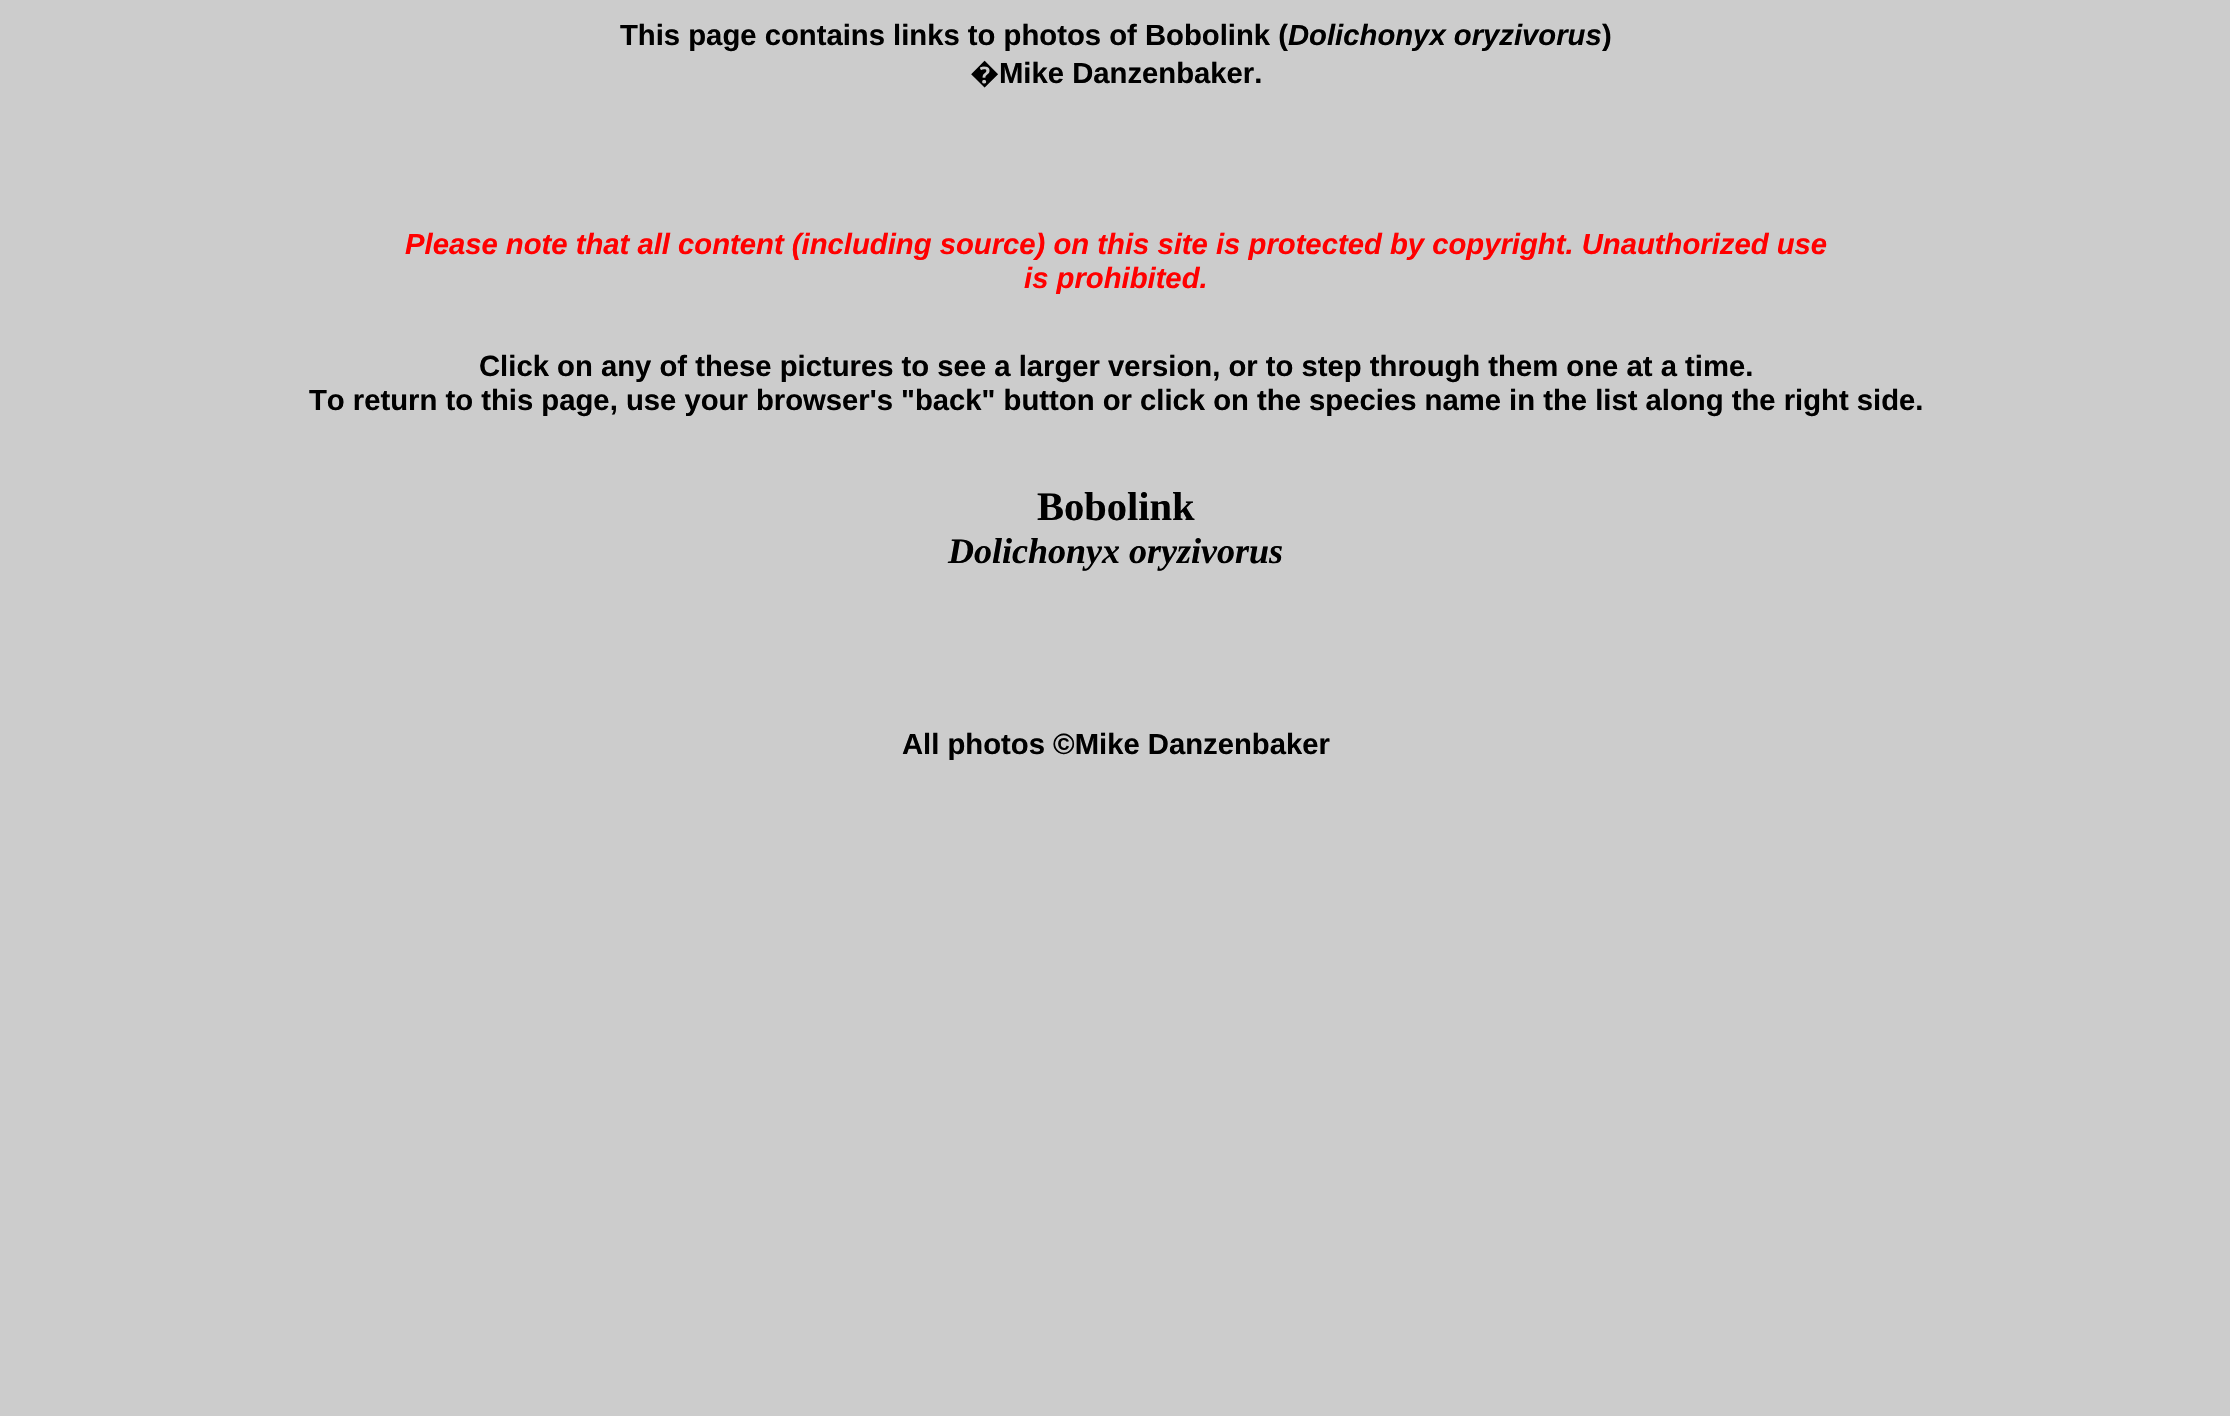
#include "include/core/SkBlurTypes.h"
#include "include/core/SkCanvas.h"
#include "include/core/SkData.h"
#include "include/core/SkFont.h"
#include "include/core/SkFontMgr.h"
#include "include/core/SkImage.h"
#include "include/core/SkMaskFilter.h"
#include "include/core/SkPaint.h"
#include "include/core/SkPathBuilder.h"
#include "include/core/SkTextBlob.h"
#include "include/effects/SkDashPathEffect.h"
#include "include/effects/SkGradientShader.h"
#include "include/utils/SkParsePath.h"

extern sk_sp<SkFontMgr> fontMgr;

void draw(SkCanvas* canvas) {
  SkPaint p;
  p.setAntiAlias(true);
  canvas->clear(SkColorSetRGB(204, 204, 204));
  SkFont font1(fontMgr->matchFamilyStyle("Liberation Sans", SkFontStyle::Bold()), 29.25f);
  font1.setSubpixel(true);
  p.setColor(SK_ColorBLACK);
  canvas->drawString("This page contains links to photos of Bobolink (", 620, 45, font1, p);
  SkFont font2(fontMgr->matchFamilyStyle("Liberation Sans", SkFontStyle::BoldItalic()), 29.25f);
  font2.setSubpixel(true);
  canvas->drawString("Dolichonyx oryzivorus", 1288, 45, font2, p);
  canvas->drawString(")", 1602, 45, font1, p);
  SkFont font3(fontMgr->matchFamilyStyle("Noto Sans", SkFontStyle::Bold()), 29.25f);
  font3.setSubpixel(true);
  canvas->drawString("�", 970, 83, font3, p);
  canvas->drawString("Mike Danzenbaker.", 999, 83, font1, p);
  p.setColor(SkColorSetRGB(255, 0, 0));
  canvas->drawString("Please note that all content (including source) on this site is protected by copyright. Unauthorized use", 405, 254, font2, p);
  canvas->drawString("is prohibited.", 1024, 288, font2, p);
  p.setColor(SK_ColorBLACK);
  canvas->drawString("Click on any of these pictures to see a larger version, or to step through them one at a time.", 479, 376, font1, p);
  canvas->drawString("To return to this page, use your browser's \"back\" button or click on the species name in the list along the right side.", 309, 410, font1, p);
  SkFont font4(fontMgr->matchFamilyStyle("Liberation Serif", SkFontStyle::Bold()), 40.5f);
  font4.setSubpixel(true);
  canvas->drawString("Bobolink", 1037, 520, font4, p);
  SkFont font5(fontMgr->matchFamilyStyle("Liberation Serif", SkFontStyle::BoldItalic()), 36);
  font5.setSubpixel(true);
  canvas->drawString("Dolichonyx oryzivorus", 948, 563, font5, p);
  canvas->drawString("All photos ©Mike Danzenbaker", 902, 754, font1, p);
}
